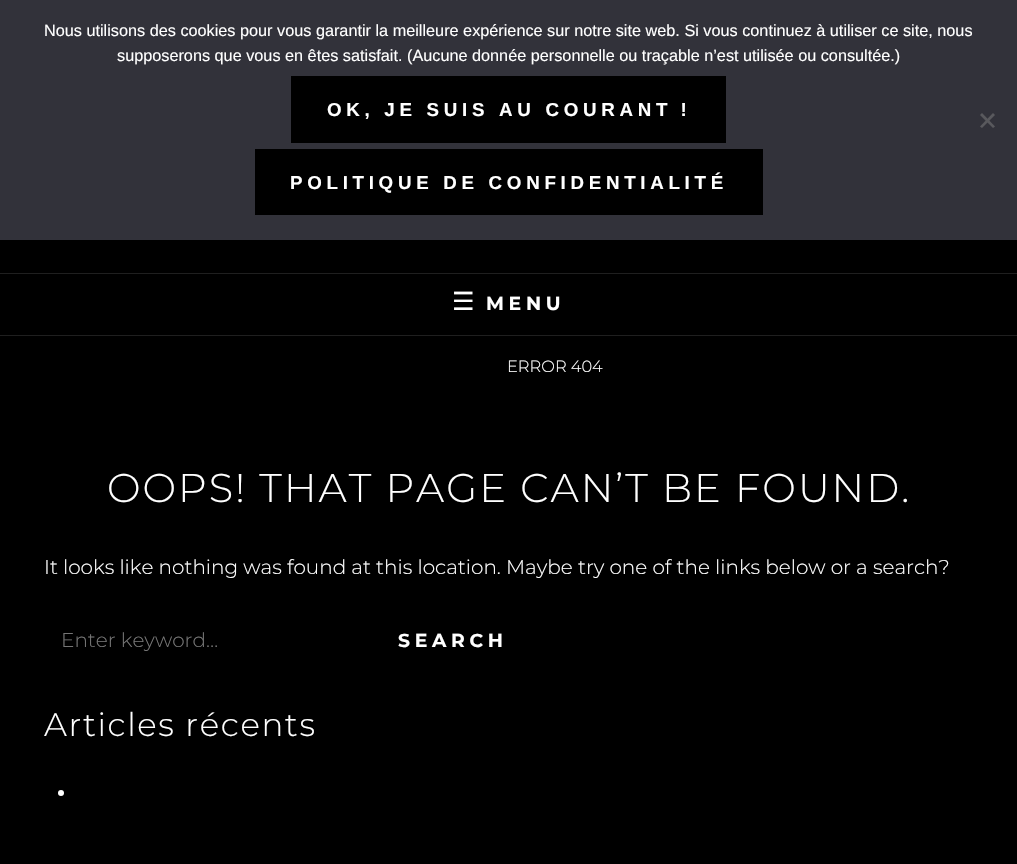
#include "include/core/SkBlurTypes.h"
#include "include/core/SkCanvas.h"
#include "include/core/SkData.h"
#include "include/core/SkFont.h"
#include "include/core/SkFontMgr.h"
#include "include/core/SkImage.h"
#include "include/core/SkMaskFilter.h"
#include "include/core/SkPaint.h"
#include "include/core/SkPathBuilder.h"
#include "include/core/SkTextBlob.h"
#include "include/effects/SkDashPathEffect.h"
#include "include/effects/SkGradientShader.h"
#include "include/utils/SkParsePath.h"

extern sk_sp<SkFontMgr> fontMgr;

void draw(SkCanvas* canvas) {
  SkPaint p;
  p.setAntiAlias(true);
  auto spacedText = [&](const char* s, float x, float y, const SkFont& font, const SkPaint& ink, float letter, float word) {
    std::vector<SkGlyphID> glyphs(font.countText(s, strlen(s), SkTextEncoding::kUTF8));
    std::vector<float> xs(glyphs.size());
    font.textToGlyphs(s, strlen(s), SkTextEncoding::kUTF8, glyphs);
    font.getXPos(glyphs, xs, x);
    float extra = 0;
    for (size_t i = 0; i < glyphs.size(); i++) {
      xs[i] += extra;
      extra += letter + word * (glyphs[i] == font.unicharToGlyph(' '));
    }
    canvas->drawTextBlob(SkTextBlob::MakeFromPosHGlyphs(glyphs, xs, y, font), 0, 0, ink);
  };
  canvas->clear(SK_ColorBLACK);
  p.setColor(SkColorSetRGB(50, 50, 58));
  canvas->drawRect(SkRect::MakeLTRB(0, 0, 1017, 240), p);
  p.setColor(SK_ColorBLACK);
  canvas->drawRect(SkRect::MakeLTRB(291, 76, 726, 143), p);
  canvas->drawRect(SkRect::MakeLTRB(255, 149, 763, 215), p);
  p.setColor(SkColorSetRGB(89, 89, 93));
  canvas->drawPath(SkPathBuilder().moveTo(993, 113).lineTo(995, 115).lineTo(982, 128).lineTo(980, 126.5f).close().detach(), p);
  canvas->drawPath(SkPathBuilder().moveTo(980, 115).lineTo(982, 113).lineTo(995, 126.5f).lineTo(993, 128).close().detach(), p);
  p.setColor(SkColorSetRGB(31, 31, 31));
  canvas->drawRect(SkRect::MakeLTRB(0, 273, 1017, 274), p);
  canvas->drawRect(SkRect::MakeLTRB(0, 335, 1017, 336), p);
  p.setColor(SK_ColorWHITE);
  canvas->drawCircle(61, 793, 3, p);
  SkFont font1(fontMgr->matchFamilyStyle("Liberation Sans", SkFontStyle::Normal()), 16.25f);
  font1.setSubpixel(true);
  canvas->drawString("Nous utilisons des cookies pour vous garantir la meilleure expérience sur notre site web. Si vous continuez à utiliser ce site, nous", 44, 36, font1, p);
  canvas->drawString("supposerons que vous en êtes satisfait. (Aucune donnée personnelle ou traçable n’est utilisée ou consultée.)", 117, 61, font1, p);
  SkFont font2(fontMgr->matchFamilyStyle("Liberation Sans", SkFontStyle::Bold()), 18.75f);
  font2.setSubpixel(true);
  spacedText("OK, JE SUIS AU COURANT !", 327, 116, font2, p, 4.7f, 0);
  spacedText("POLITIQUE DE CONFIDENTIALITÉ", 290, 189, font2, p, 4.7f, 0);
  SkFont font3(fontMgr->matchFamilyStyle("DejaVu Sans", SkFontStyle::Normal()), 25);
  font3.setSubpixel(true);
  spacedText("☰", 452, 310, font3, p, 4.7f, 0);
  SkFont font4(fontMgr->matchFamilyStyle("Montserrat", SkFontStyle::Bold()), 18.75f);
  font4.setSubpixel(true);
  spacedText("MENU", 486, 310, font4, p, 4.7f, 0);
  SkFont font5(fontMgr->matchFamilyStyle("Montserrat", SkFontStyle(300, SkFontStyle::kNormal_Width, SkFontStyle::kUpright_Slant)), 16.25f);
  font5.setSubpixel(true);
  canvas->drawString("ERROR 404", 507, 372, font5, p);
  SkFont font6(fontMgr->matchFamilyStyle("Montserrat", SkFontStyle(300, SkFontStyle::kNormal_Width, SkFontStyle::kUpright_Slant)), 40);
  font6.setSubpixel(true);
  spacedText("OOPS! THAT PAGE CAN’T BE FOUND.", 107, 502, font6, p, 2, 0);
  SkFont font7(fontMgr->matchFamilyStyle("Montserrat", SkFontStyle(300, SkFontStyle::kNormal_Width, SkFontStyle::kUpright_Slant)), 20);
  font7.setSubpixel(true);
  canvas->drawString("It looks like nothing was found at this location. Maybe try one of the links below or a search?", 44, 574, font7, p);
  p.setColor(SkColorSetRGB(117, 117, 117));
  canvas->drawString("Enter keyword…", 61, 647, font7, p);
  p.setColor(SK_ColorWHITE);
  spacedText("SEARCH", 398, 647, font4, p, 4.7f, 0);
  SkFont font8(fontMgr->matchFamilyStyle("Montserrat", SkFontStyle(300, SkFontStyle::kNormal_Width, SkFontStyle::kUpright_Slant)), 32.5f);
  font8.setSubpixel(true);
  spacedText("Articles récents", 44, 736, font8, p, 1.6f, 0);
}
